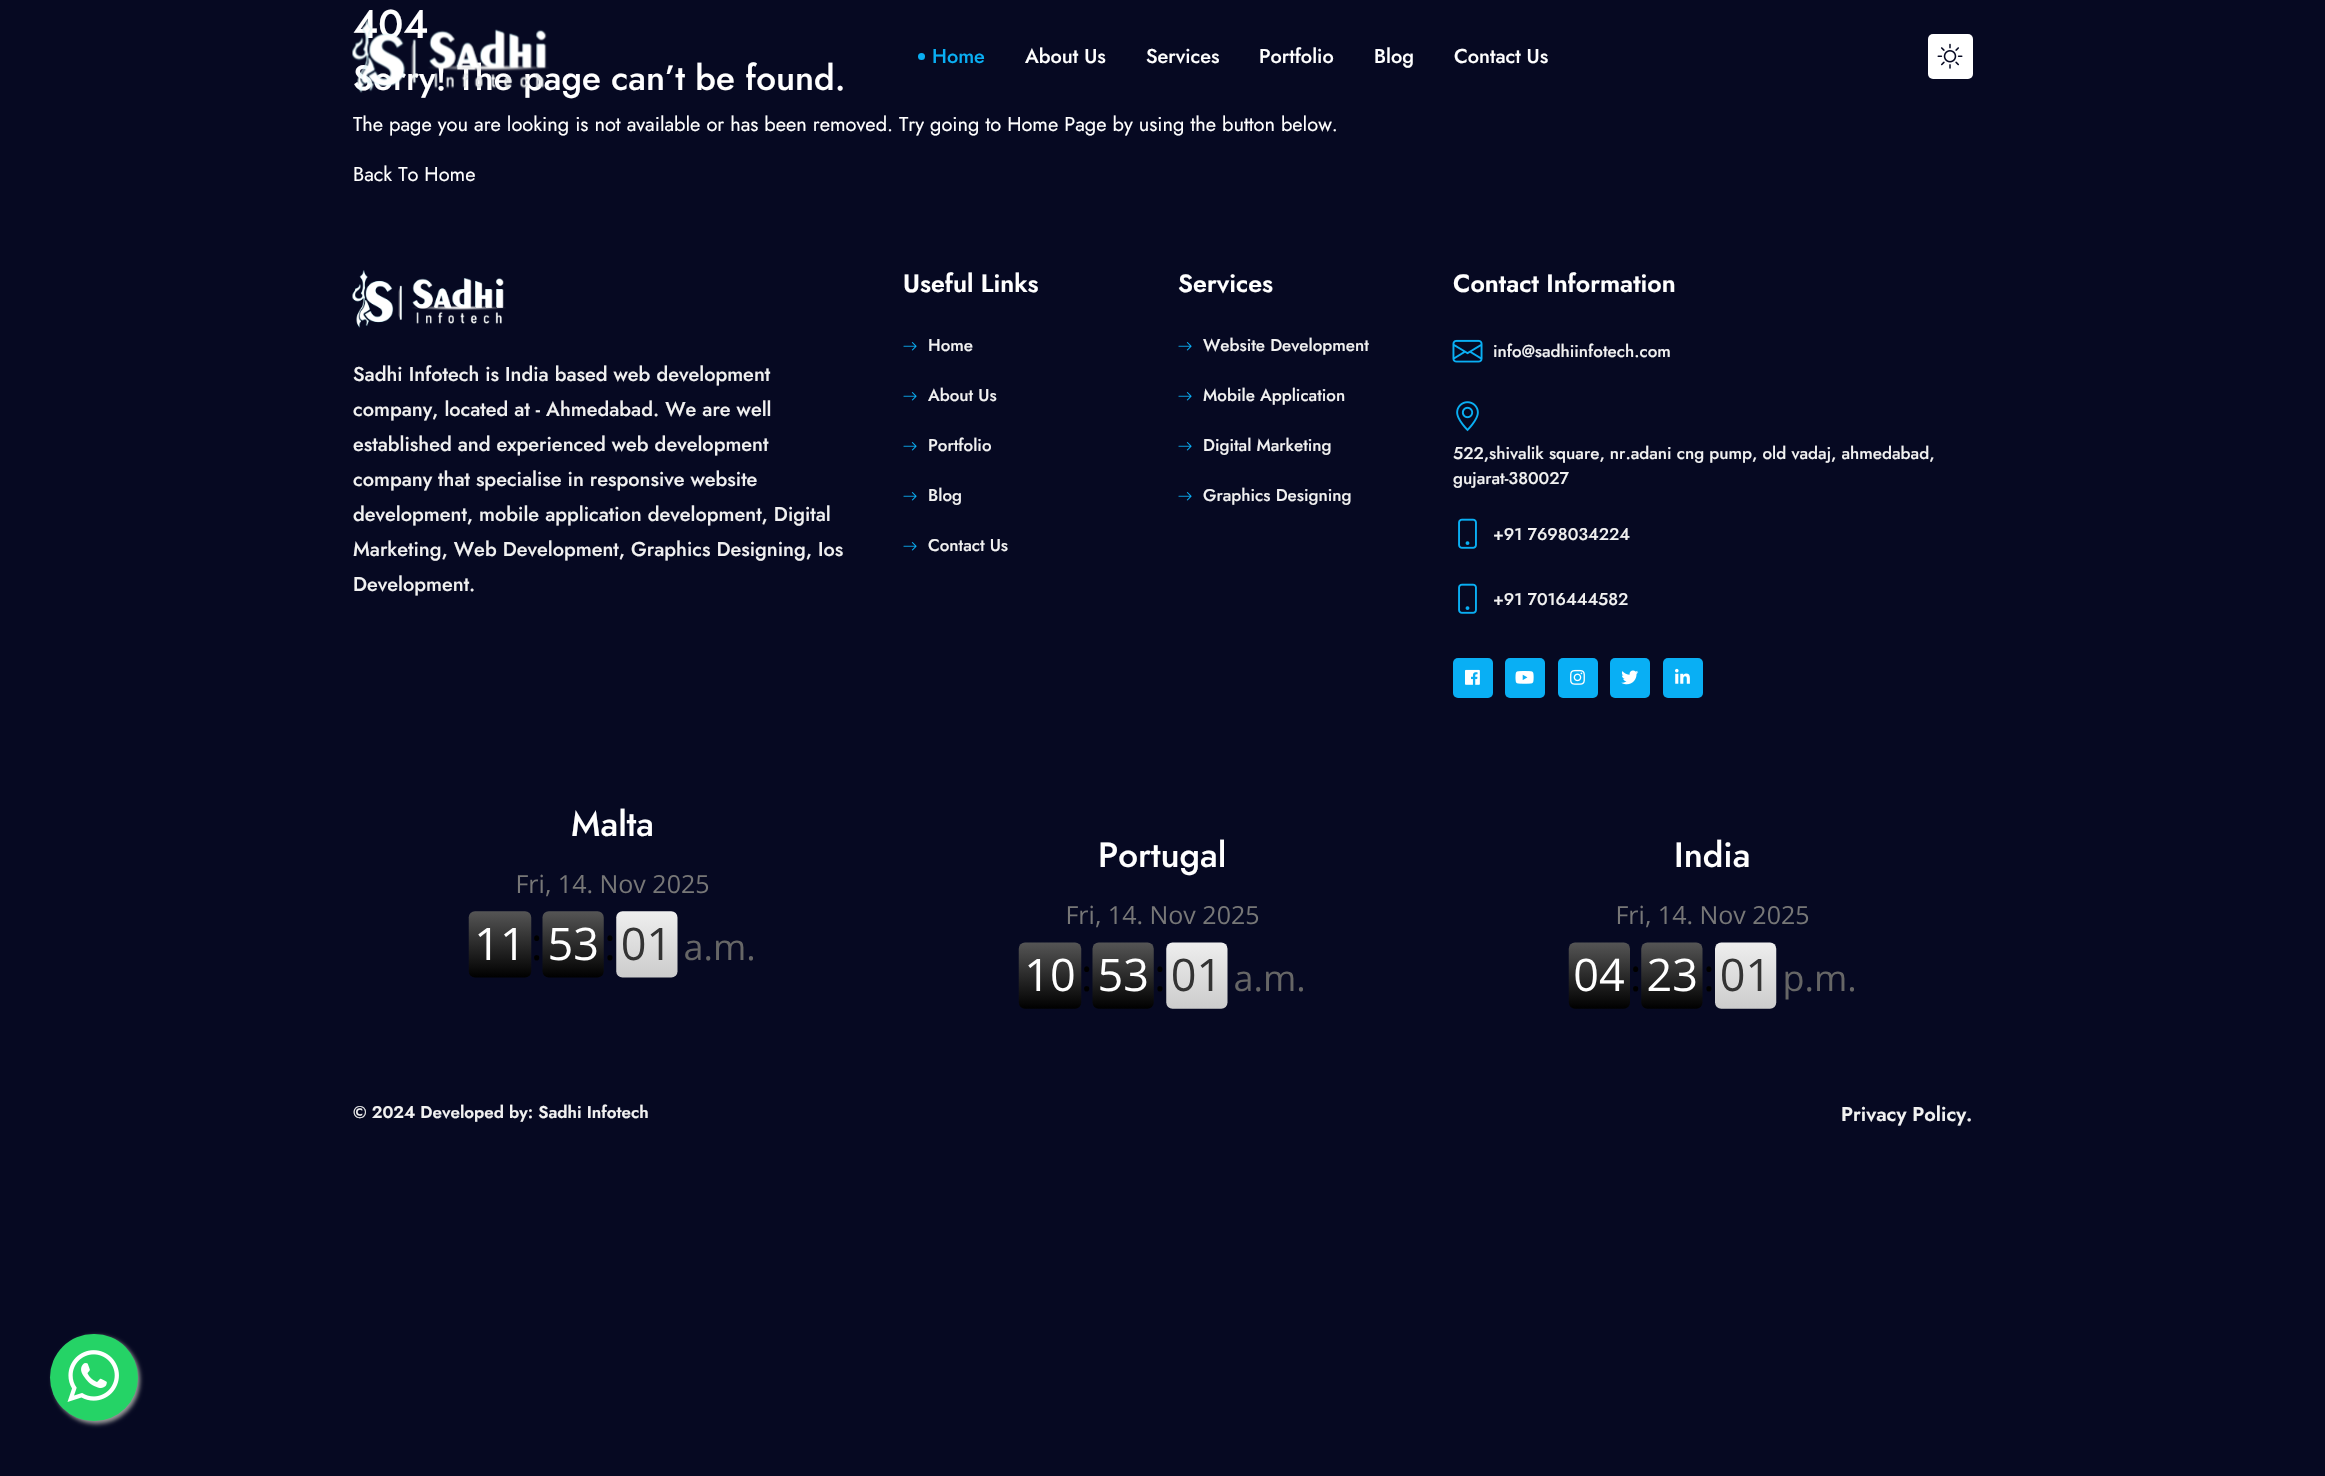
#include "include/core/SkBlurTypes.h"
#include "include/core/SkCanvas.h"
#include "include/core/SkData.h"
#include "include/core/SkFont.h"
#include "include/core/SkFontMgr.h"
#include "include/core/SkImage.h"
#include "include/core/SkMaskFilter.h"
#include "include/core/SkPaint.h"
#include "include/core/SkPathBuilder.h"
#include "include/core/SkTextBlob.h"
#include "include/effects/SkDashPathEffect.h"
#include "include/effects/SkGradientShader.h"
#include "include/utils/SkParsePath.h"

extern sk_sp<SkFontMgr> fontMgr;

void draw(SkCanvas* canvas) {
  SkPaint p;
  p.setAntiAlias(true);
  canvas->clear(SkColorSetRGB(6, 9, 34));
  p.setColor(SkColorSetRGB(9, 175, 244));
  canvas->drawCircle(921.5f, 56.5f, 3.5f, p);
  p.setColor(SK_ColorWHITE);
  canvas->drawRoundRect(SkRect::MakeLTRB(1928, 34, 1973, 79), 5, 5, p);
  canvas->drawImageRect(SkImages::DeferredFromEncodedData(SkData::MakeFromFileName("images/2.png")), SkRect::MakeLTRB(1937, 43, 1963, 69), SkSamplingOptions());
  canvas->drawImageRect(SkImages::DeferredFromEncodedData(SkData::MakeFromFileName("images/3.png")), SkRect::MakeLTRB(352, 270, 506, 328), SkSamplingOptions());
  canvas->drawImageRect(SkImages::DeferredFromEncodedData(SkData::MakeFromFileName("images/4.png")), SkRect::MakeLTRB(903, 342, 917, 351), SkSamplingOptions());
  canvas->drawImageRect(SkImages::DeferredFromEncodedData(SkData::MakeFromFileName("images/4.png")), SkRect::MakeLTRB(903, 392, 917, 401), SkSamplingOptions());
  canvas->drawImageRect(SkImages::DeferredFromEncodedData(SkData::MakeFromFileName("images/4.png")), SkRect::MakeLTRB(903, 442, 917, 451), SkSamplingOptions());
  canvas->drawImageRect(SkImages::DeferredFromEncodedData(SkData::MakeFromFileName("images/4.png")), SkRect::MakeLTRB(903, 492, 917, 501), SkSamplingOptions());
  canvas->drawImageRect(SkImages::DeferredFromEncodedData(SkData::MakeFromFileName("images/4.png")), SkRect::MakeLTRB(903, 542, 917, 551), SkSamplingOptions());
  canvas->drawImageRect(SkImages::DeferredFromEncodedData(SkData::MakeFromFileName("images/4.png")), SkRect::MakeLTRB(1178, 342, 1192, 351), SkSamplingOptions());
  canvas->drawImageRect(SkImages::DeferredFromEncodedData(SkData::MakeFromFileName("images/4.png")), SkRect::MakeLTRB(1178, 392, 1192, 401), SkSamplingOptions());
  canvas->drawImageRect(SkImages::DeferredFromEncodedData(SkData::MakeFromFileName("images/4.png")), SkRect::MakeLTRB(1178, 442, 1192, 451), SkSamplingOptions());
  canvas->drawImageRect(SkImages::DeferredFromEncodedData(SkData::MakeFromFileName("images/4.png")), SkRect::MakeLTRB(1178, 492, 1192, 501), SkSamplingOptions());
  canvas->drawImageRect(SkImages::DeferredFromEncodedData(SkData::MakeFromFileName("images/5.png")), SkRect::MakeLTRB(1452, 339, 1483, 363), SkSamplingOptions());
  canvas->drawImageRect(SkImages::DeferredFromEncodedData(SkData::MakeFromFileName("images/6.png")), SkRect::MakeLTRB(1456, 401, 1479, 432), SkSamplingOptions());
  canvas->drawImageRect(SkImages::DeferredFromEncodedData(SkData::MakeFromFileName("images/7.png")), SkRect::MakeLTRB(1458, 518, 1477, 549), SkSamplingOptions());
  canvas->drawImageRect(SkImages::DeferredFromEncodedData(SkData::MakeFromFileName("images/7.png")), SkRect::MakeLTRB(1458, 583, 1477, 614), SkSamplingOptions());
  p.setColor(SkColorSetRGB(9, 175, 244));
  canvas->drawRoundRect(SkRect::MakeLTRB(1453, 658, 1493, 698), 5, 5, p);
  canvas->drawImageRect(SkImages::DeferredFromEncodedData(SkData::MakeFromFileName("images/8.png")), SkRect::MakeLTRB(1465, 669, 1480, 685), SkSamplingOptions());
  canvas->drawRoundRect(SkRect::MakeLTRB(1505, 658, 1545, 698), 5, 5, p);
  canvas->drawImageRect(SkImages::DeferredFromEncodedData(SkData::MakeFromFileName("images/9.png")), SkRect::MakeLTRB(1515, 671, 1534, 684), SkSamplingOptions());
  canvas->drawRoundRect(SkRect::MakeLTRB(1558, 658, 1598, 698), 5, 5, p);
  canvas->drawImageRect(SkImages::DeferredFromEncodedData(SkData::MakeFromFileName("images/10.png")), SkRect::MakeLTRB(1570, 669, 1585, 685), SkSamplingOptions());
  canvas->drawRoundRect(SkRect::MakeLTRB(1610, 658, 1650, 698), 5, 5, p);
  canvas->drawImageRect(SkImages::DeferredFromEncodedData(SkData::MakeFromFileName("images/11.png")), SkRect::MakeLTRB(1621, 670, 1639, 685), SkSamplingOptions());
  canvas->drawRoundRect(SkRect::MakeLTRB(1663, 658, 1703, 698), 5, 5, p);
  canvas->drawImageRect(SkImages::DeferredFromEncodedData(SkData::MakeFromFileName("images/12.png")), SkRect::MakeLTRB(1675, 668, 1690, 684), SkSamplingOptions());
  canvas->drawImageRect(SkImages::DeferredFromEncodedData(SkData::MakeFromFileName("images/13.png")), SkRect::MakeLTRB(468, 874, 753, 978), SkSamplingOptions());
  canvas->drawImageRect(SkImages::DeferredFromEncodedData(SkData::MakeFromFileName("images/14.png")), SkRect::MakeLTRB(1018, 905, 1303, 1009), SkSamplingOptions());
  canvas->drawImageRect(SkImages::DeferredFromEncodedData(SkData::MakeFromFileName("images/15.png")), SkRect::MakeLTRB(1568, 905, 1854, 1009), SkSamplingOptions());
  p.setColor(SkColorSetRGB(153, 153, 153));
  p.setMaskFilter(SkMaskFilter::MakeBlur(kNormal_SkBlurStyle, 2));
  canvas->drawRoundRect(SkRect::MakeLTRB(53, 1336, 140, 1424), 43.5f, 43.5f, p);
  p.setMaskFilter(nullptr);
  p.setColor(SkColorSetRGB(37, 211, 102));
  canvas->drawRoundRect(SkRect::MakeLTRB(50, 1334, 138, 1421), 43.5f, 43.5f, p);
  canvas->drawImageRect(SkImages::DeferredFromEncodedData(SkData::MakeFromFileName("images/16.png")), SkRect::MakeLTRB(67, 1350, 119, 1402), SkSamplingOptions());
  SkFont font1(fontMgr->matchFamilyStyle("Jost", SkFontStyle(500, SkFontStyle::kNormal_Width, SkFontStyle::kUpright_Slant)), 40);
  font1.setSubpixel(true);
  p.setColor(SK_ColorWHITE);
  canvas->drawString("404", 353, 38, font1, p);
  SkFont font2(fontMgr->matchFamilyStyle("Jost", SkFontStyle(500, SkFontStyle::kNormal_Width, SkFontStyle::kUpright_Slant)), 35);
  font2.setSubpixel(true);
  canvas->drawString("Sorry! The page can’t be found.", 353, 90, font2, p);
  SkFont font3(fontMgr->matchFamilyStyle("Jost", SkFontStyle::Normal()), 20);
  font3.setSubpixel(true);
  canvas->drawString("The page you are looking is not available or has been removed. Try going to Home Page by using the button below.", 353, 131, font3, p);
  canvas->drawString("Back To Home", 353, 181, font3, p);
  canvas->drawImageRect(SkImages::DeferredFromEncodedData(SkData::MakeFromFileName("images/1.png")), SkRect::MakeLTRB(352, 20, 549, 93), SkSamplingOptions());
  SkFont font4(fontMgr->matchFamilyStyle("Jost", SkFontStyle(500, SkFontStyle::kNormal_Width, SkFontStyle::kUpright_Slant)), 20);
  font4.setSubpixel(true);
  p.setColor(SkColorSetRGB(9, 175, 244));
  canvas->drawString("Home", 932, 63, font4, p);
  p.setColor(SK_ColorWHITE);
  canvas->drawString("About Us", 1025, 63, font4, p);
  canvas->drawString("Services", 1146, 63, font4, p);
  canvas->drawString("Portfolio", 1259, 63, font4, p);
  canvas->drawString("Blog", 1374, 63, font4, p);
  canvas->drawString("Contact Us", 1454, 63, font4, p);
  p.setColor(SkColorSetRGB(241, 241, 241));
  canvas->drawString("Sadhi Infotech is India based web development", 353, 381, font4, p);
  canvas->drawString("company, located at - Ahmedabad. We are well", 353, 416, font4, p);
  canvas->drawString("established and experienced web development", 353, 451, font4, p);
  canvas->drawString("company that specialise in responsive website", 353, 486, font4, p);
  canvas->drawString("development, mobile application development, Digital", 353, 521, font4, p);
  canvas->drawString("Marketing, Web Development, Graphics Designing, Ios", 353, 556, font4, p);
  canvas->drawString("Development.", 353, 591, font4, p);
  SkFont font5(fontMgr->matchFamilyStyle("Jost", SkFontStyle(600, SkFontStyle::kNormal_Width, SkFontStyle::kUpright_Slant)), 25);
  font5.setSubpixel(true);
  p.setColor(SK_ColorWHITE);
  canvas->drawString("Useful Links", 903, 292, font5, p);
  SkFont font6(fontMgr->matchFamilyStyle("Jost", SkFontStyle(500, SkFontStyle::kNormal_Width, SkFontStyle::kUpright_Slant)), 17);
  font6.setSubpixel(true);
  p.setColor(SkColorSetRGB(241, 241, 241));
  canvas->drawString("Home", 928, 351, font6, p);
  canvas->drawString("About Us", 928, 401, font6, p);
  canvas->drawString("Portfolio", 928, 451, font6, p);
  canvas->drawString("Blog", 928, 501, font6, p);
  canvas->drawString("Contact Us", 928, 551, font6, p);
  p.setColor(SK_ColorWHITE);
  canvas->drawString("Services", 1178, 292, font5, p);
  p.setColor(SkColorSetRGB(241, 241, 241));
  canvas->drawString("Website Development", 1203, 351, font6, p);
  canvas->drawString("Mobile Application", 1203, 401, font6, p);
  canvas->drawString("Digital Marketing", 1203, 451, font6, p);
  canvas->drawString("Graphics Designing", 1203, 501, font6, p);
  p.setColor(SK_ColorWHITE);
  canvas->drawString("Contact Information", 1453, 292, font5, p);
  p.setColor(SkColorSetRGB(241, 241, 241));
  canvas->drawString("info@sadhiinfotech.com", 1493, 357, font6, p);
  canvas->drawString("522,shivalik square, nr.adani cng pump, old vadaj, ahmedabad,", 1453, 459, font6, p);
  canvas->drawString("gujarat-380027", 1453, 484, font6, p);
  canvas->drawString("+91 7698034224", 1493, 540, font6, p);
  canvas->drawString("+91 7016444582", 1493, 605, font6, p);
  p.setColor(SK_ColorWHITE);
  canvas->drawString("Malta", 571, 836, font2, p);
  canvas->drawString("Portugal", 1098, 867, font2, p);
  canvas->drawString("India", 1674, 867, font2, p);
  SkFont font7(fontMgr->matchFamilyStyle("Jost", SkFontStyle(600, SkFontStyle::kNormal_Width, SkFontStyle::kUpright_Slant)), 17);
  font7.setSubpixel(true);
  p.setColor(SkColorSetRGB(241, 241, 241));
  canvas->drawString("© 2024 Developed by: Sadhi Infotech", 353, 1118, font7, p);
  SkFont font8(fontMgr->matchFamilyStyle("Jost", SkFontStyle(600, SkFontStyle::kNormal_Width, SkFontStyle::kUpright_Slant)), 20);
  font8.setSubpixel(true);
  canvas->drawString("Privacy Policy.", 1841, 1121, font8, p);
}
